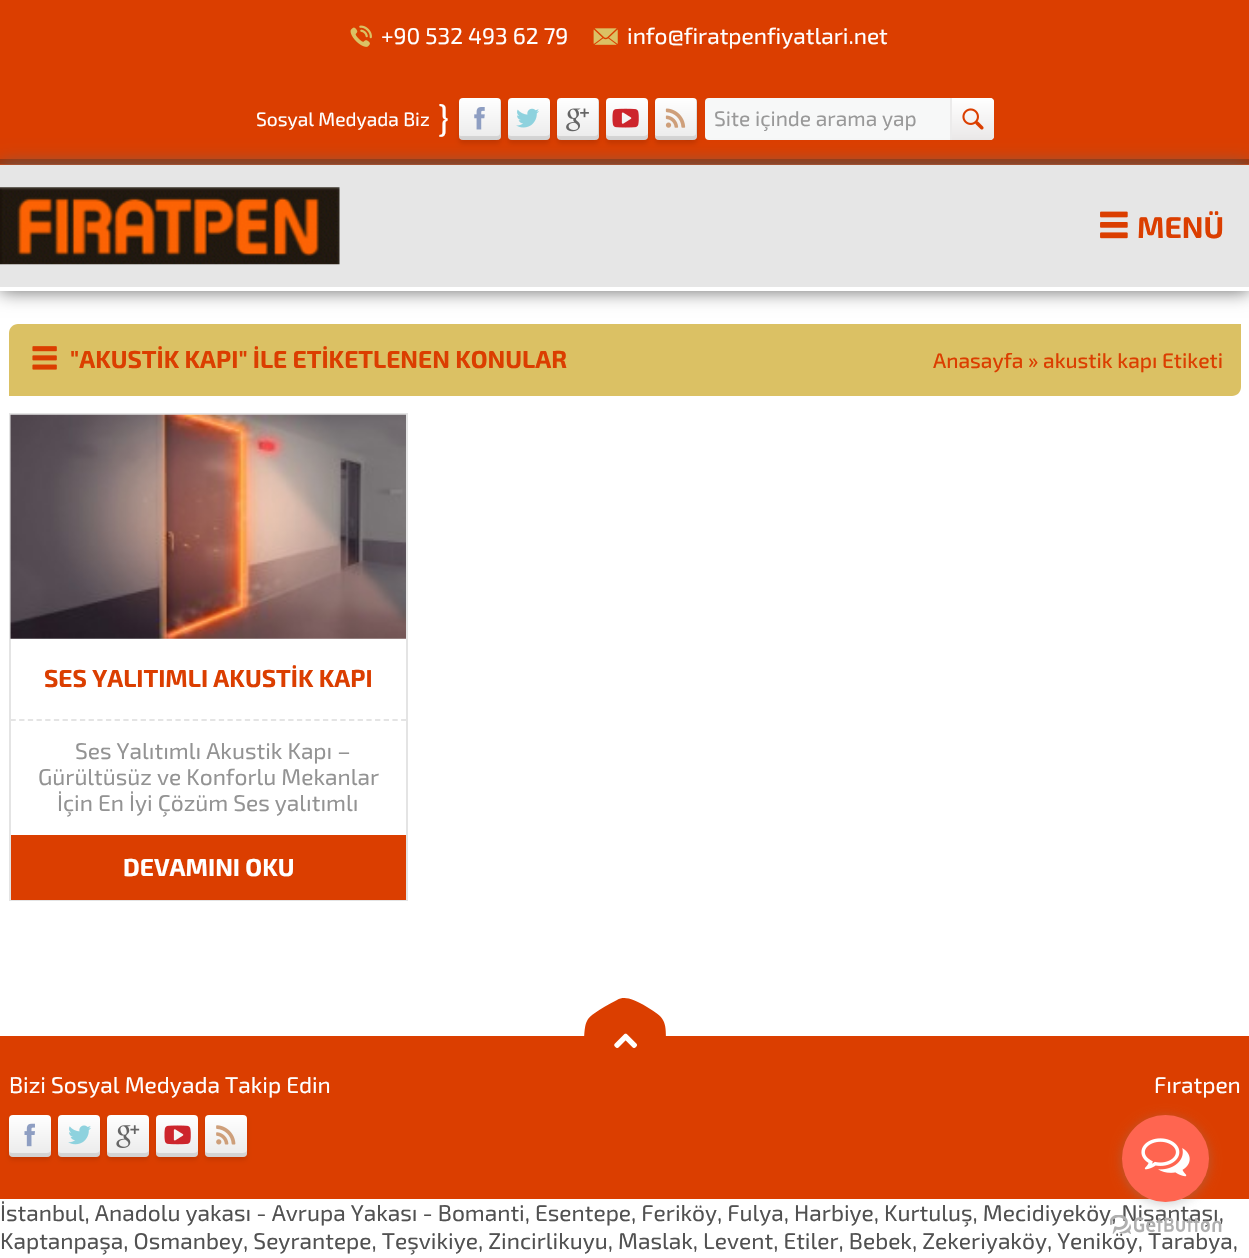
#include "include/core/SkBlurTypes.h"
#include "include/core/SkCanvas.h"
#include "include/core/SkData.h"
#include "include/core/SkFont.h"
#include "include/core/SkFontMgr.h"
#include "include/core/SkImage.h"
#include "include/core/SkMaskFilter.h"
#include "include/core/SkPaint.h"
#include "include/core/SkPathBuilder.h"
#include "include/core/SkTextBlob.h"
#include "include/effects/SkDashPathEffect.h"
#include "include/effects/SkGradientShader.h"
#include "include/utils/SkParsePath.h"

extern sk_sp<SkFontMgr> fontMgr;

void draw(SkCanvas* canvas) {
  SkPaint p;
  p.setAntiAlias(true);
  canvas->clear(SK_ColorWHITE);
  p.setColor(SkColorSetRGB(230, 230, 230));
  canvas->drawRect(SkRect::MakeLTRB(0, 165, 1249, 287), p);
  p.setColor(SkColorSetRGB(219, 62, 0));
  canvas->drawRect(SkRect::MakeLTRB(0, 0, 1249, 165), p);
  p.setColor(SkColorSetRGB(164, 47, 0));
  canvas->drawRect(SkRect::MakeLTRB(0, 159, 1249, 164), p);
  canvas->drawImageRect(SkImages::DeferredFromEncodedData(SkData::MakeFromFileName("images/1.png")), SkRect::MakeLTRB(350, 25, 372, 47), SkSamplingOptions());
  canvas->drawImageRect(SkImages::DeferredFromEncodedData(SkData::MakeFromFileName("images/2.png")), SkRect::MakeLTRB(593, 28, 618, 45), SkSamplingOptions());
  canvas->save();
  canvas->clipPath(SkPathBuilder(SkPathFillType::kEvenOdd).moveTo(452, 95).lineTo(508, 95).lineTo(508, 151).lineTo(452, 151).close().moveTo(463, 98).lineTo(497, 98).cubicTo(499, 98, 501, 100, 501, 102).lineTo(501, 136).cubicTo(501, 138, 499, 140, 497, 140).lineTo(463, 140).cubicTo(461, 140, 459, 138, 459, 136).lineTo(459, 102).cubicTo(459, 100, 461, 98, 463, 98).close().detach(), true);
  p.setColor(SkColorSetARGB(26, 0, 0, 0));
  p.setMaskFilter(SkMaskFilter::MakeBlur(kNormal_SkBlurStyle, 2));
  canvas->drawRoundRect(SkRect::MakeLTRB(459, 102, 501, 144), 4, 4, p);
  p.setMaskFilter(nullptr);
  canvas->restore();
  {
    const SkColor colors[] = {SkColorSetRGB(234, 234, 234), SK_ColorWHITE};
    const float stops[] = {0, 1};
    const SkPoint ends[] = {{480, 140}, {480, 98}};
    p.setShader(SkGradientShader::MakeLinear(ends, colors, stops, 2, SkTileMode::kClamp));
    p.setAlpha(255);
  }
  canvas->drawRoundRect(SkRect::MakeLTRB(459, 98, 501, 140), 4, 4, p);
  p.setShader(nullptr);
  p.setColor(SkColorSetARGB(26, 0, 0, 0));
  canvas->drawPath(SkPathBuilder().moveTo(459, 135).cubicTo(459, 141, 464, 140, 469, 140).lineTo(480, 140).cubicTo(505, 140, 501, 144, 501, 119).lineTo(501, 108).cubicTo(501, 106, 502, 101, 500, 99).lineTo(500, 133).cubicTo(500, 135, 499, 136, 497, 136).lineTo(462, 136).cubicTo(461, 136, 460, 136, 459, 135).close().detach(), p);
  canvas->drawImageRect(SkImages::DeferredFromEncodedData(SkData::MakeFromFileName("images/3.png")), SkRect::MakeLTRB(474, 107, 485, 130), SkSamplingOptions());
  p.setMaskFilter(SkMaskFilter::MakeBlur(kNormal_SkBlurStyle, 2));
  canvas->drawRoundRect(SkRect::MakeLTRB(508, 102, 550, 144), 4, 4, p);
  p.setMaskFilter(nullptr);
  {
    const SkColor colors[] = {SkColorSetRGB(234, 234, 234), SK_ColorWHITE};
    const float stops[] = {0, 1};
    const SkPoint ends[] = {{529, 140}, {529, 98}};
    p.setShader(SkGradientShader::MakeLinear(ends, colors, stops, 2, SkTileMode::kClamp));
    p.setAlpha(255);
  }
  canvas->drawRoundRect(SkRect::MakeLTRB(508, 98, 550, 140), 4, 4, p);
  p.setShader(nullptr);
  p.setColor(SkColorSetARGB(26, 0, 0, 0));
  canvas->drawPath(SkPathBuilder().moveTo(508, 133).cubicTo(508, 141, 510, 140, 518, 140).lineTo(540, 140).cubicTo(548, 140, 550, 141, 550, 133).cubicTo(550, 135, 548, 136, 546, 136).lineTo(511, 136).cubicTo(509, 136, 508, 135, 508, 133).close().detach(), p);
  canvas->drawImageRect(SkImages::DeferredFromEncodedData(SkData::MakeFromFileName("images/4.png")), SkRect::MakeLTRB(516, 108, 539, 128), SkSamplingOptions());
  p.setMaskFilter(SkMaskFilter::MakeBlur(kNormal_SkBlurStyle, 2));
  canvas->drawRoundRect(SkRect::MakeLTRB(557, 102, 599, 144), 4, 4, p);
  p.setMaskFilter(nullptr);
  {
    const SkColor colors[] = {SkColorSetRGB(234, 234, 234), SK_ColorWHITE};
    const float stops[] = {0, 1};
    const SkPoint ends[] = {{578, 140}, {578, 98}};
    p.setShader(SkGradientShader::MakeLinear(ends, colors, stops, 2, SkTileMode::kClamp));
    p.setAlpha(255);
  }
  canvas->drawRoundRect(SkRect::MakeLTRB(557, 98, 599, 140), 4, 4, p);
  p.setShader(nullptr);
  p.setColor(SkColorSetARGB(26, 0, 0, 0));
  canvas->drawPath(SkPathBuilder().moveTo(557, 135).cubicTo(557, 141, 562, 140, 567, 140).lineTo(578, 140).cubicTo(603, 140, 599, 144, 599, 119).lineTo(599, 108).cubicTo(599, 106, 600, 101, 598, 99).lineTo(598, 133).cubicTo(598, 135, 597, 136, 595, 136).lineTo(560, 136).cubicTo(559, 136, 558, 136, 557, 135).close().detach(), p);
  canvas->drawImageRect(SkImages::DeferredFromEncodedData(SkData::MakeFromFileName("images/5.png")), SkRect::MakeLTRB(566, 108, 589, 132), SkSamplingOptions());
  p.setMaskFilter(SkMaskFilter::MakeBlur(kNormal_SkBlurStyle, 2));
  canvas->drawRoundRect(SkRect::MakeLTRB(606, 102, 648, 144), 4, 4, p);
  p.setMaskFilter(nullptr);
  {
    const SkColor colors[] = {SkColorSetRGB(234, 234, 234), SK_ColorWHITE};
    const float stops[] = {0, 1};
    const SkPoint ends[] = {{627, 140}, {627, 98}};
    p.setShader(SkGradientShader::MakeLinear(ends, colors, stops, 2, SkTileMode::kClamp));
    p.setAlpha(255);
  }
  canvas->drawRoundRect(SkRect::MakeLTRB(606, 98, 648, 140), 4, 4, p);
  p.setShader(nullptr);
  p.setColor(SkColorSetARGB(26, 0, 0, 0));
  canvas->drawPath(SkPathBuilder().moveTo(606, 133).cubicTo(606, 141, 608, 140, 616, 140).lineTo(638, 140).cubicTo(646, 140, 648, 141, 648, 133).cubicTo(648, 135, 646, 136, 644, 136).lineTo(609, 136).cubicTo(607, 136, 606, 135, 606, 133).close().detach(), p);
  canvas->drawImageRect(SkImages::DeferredFromEncodedData(SkData::MakeFromFileName("images/6.png")), SkRect::MakeLTRB(612, 108, 639, 128), SkSamplingOptions());
  p.setMaskFilter(SkMaskFilter::MakeBlur(kNormal_SkBlurStyle, 2));
  canvas->drawRoundRect(SkRect::MakeLTRB(655, 102, 697, 144), 4, 4, p);
  p.setMaskFilter(nullptr);
  {
    const SkColor colors[] = {SkColorSetRGB(234, 234, 234), SK_ColorWHITE};
    const float stops[] = {0, 1};
    const SkPoint ends[] = {{676, 140}, {676, 98}};
    p.setShader(SkGradientShader::MakeLinear(ends, colors, stops, 2, SkTileMode::kClamp));
    p.setAlpha(255);
  }
  canvas->drawRoundRect(SkRect::MakeLTRB(655, 98, 697, 140), 4, 4, p);
  p.setShader(nullptr);
  p.setColor(SkColorSetARGB(26, 0, 0, 0));
  canvas->drawPath(SkPathBuilder().moveTo(655, 135).cubicTo(655, 141, 660, 140, 665, 140).lineTo(676, 140).cubicTo(701, 140, 697, 144, 697, 119).lineTo(697, 108).cubicTo(697, 106, 698, 101, 696, 99).lineTo(696, 133).cubicTo(696, 135, 695, 136, 693, 136).lineTo(658, 136).cubicTo(657, 136, 656, 136, 655, 135).close().detach(), p);
  canvas->drawImageRect(SkImages::DeferredFromEncodedData(SkData::MakeFromFileName("images/7.png")), SkRect::MakeLTRB(665, 108, 686, 128), SkSamplingOptions());
  p.setColor(SkColorSetRGB(247, 248, 248));
  canvas->drawRoundRect(SkRect::MakeLTRB(705, 98, 994, 140), 4, 4, p);
  {
    const SkColor colors[] = {SK_ColorWHITE, SkColorSetRGB(234, 232, 232)};
    const float stops[] = {0, 1};
    const SkPoint ends[] = {{973, 98}, {973, 140}};
    p.setShader(SkGradientShader::MakeLinear(ends, colors, stops, 2, SkTileMode::kClamp));
    p.setAlpha(255);
  }
  canvas->drawPath(SkPathBuilder().moveTo(950, 98).lineTo(990, 98).cubicTo(992, 98, 994, 100, 994, 102).lineTo(994, 136).cubicTo(994, 138, 992, 140, 990, 140).lineTo(950, 140).close().detach(), p);
  p.setShader(nullptr);
  p.setColor(SkColorSetRGB(236, 235, 235));
  canvas->drawRect(SkRect::MakeLTRB(950, 98, 952, 140), p);
  canvas->drawImageRect(SkImages::DeferredFromEncodedData(SkData::MakeFromFileName("images/8.png")), SkRect::MakeLTRB(962, 108, 984, 130), SkSamplingOptions());
  canvas->save();
  canvas->clipPath(SkPathBuilder(SkPathFillType::kEvenOdd).moveTo(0, 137).lineTo(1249, 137).lineTo(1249, 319).lineTo(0, 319).close().moveTo(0, 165).lineTo(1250, 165).lineTo(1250, 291).lineTo(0, 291).close().detach(), true);
  p.setColor(SkColorSetRGB(102, 102, 102));
  p.setMaskFilter(SkMaskFilter::MakeBlur(kNormal_SkBlurStyle, 9));
  canvas->drawRect(SkRect::MakeLTRB(0, 165, 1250, 291), p);
  p.setMaskFilter(nullptr);
  canvas->restore();
  canvas->drawImageRect(SkImages::DeferredFromEncodedData(SkData::MakeFromFileName("images/9.png")), SkRect::MakeLTRB(0, 187, 340, 265), SkSamplingOptions());
  p.setColor(SK_ColorWHITE);
  canvas->drawRect(SkRect::MakeLTRB(0, 290, 1249, 291), p);
  canvas->drawImageRect(SkImages::DeferredFromEncodedData(SkData::MakeFromFileName("images/10.png")), SkRect::MakeLTRB(1100, 211, 1128, 239), SkSamplingOptions());
  p.setColor(SkColorSetRGB(219, 193, 100));
  canvas->drawPath(SkPathBuilder().moveTo(18, 324).lineTo(1241, 324).lineTo(1241, 387).cubicTo(1241, 392, 1237, 396, 1232, 396).lineTo(9, 396).lineTo(9, 333).cubicTo(9, 328, 13, 324, 18, 324).close().detach(), p);
  canvas->drawImageRect(SkImages::DeferredFromEncodedData(SkData::MakeFromFileName("images/11.png")), SkRect::MakeLTRB(32, 346, 57, 370), SkSamplingOptions());
  p.setStyle(SkPaint::kStroke_Style);
  p.setStrokeWidth(2);
  p.setColor(SkColorSetRGB(228, 228, 228));
  canvas->drawRect(SkRect::MakeLTRB(10, 414, 407, 900), p);
  canvas->drawImageRect(SkImages::DeferredFromEncodedData(SkData::MakeFromFileName("images/12.png")), SkRect::MakeLTRB(10, 414, 406, 639), SkSamplingOptions());
  p.setStrokeWidth(1.8f);
  p.setPathEffect(SkDashPathEffect::Make({{5.25f, 3.43f}}, 0));
  canvas->drawPath(SkPathBuilder().moveTo(10.5f, 720).lineTo(406, 720).detach(), p);
  p.setPathEffect(nullptr);
  p.setStyle(SkPaint::kFill_Style);
  p.setColor(SkColorSetRGB(219, 62, 0));
  canvas->drawRect(SkRect::MakeLTRB(11, 835, 406, 900), p);
  canvas->drawRect(SkRect::MakeLTRB(0, 1036, 1249, 1199), p);
  canvas->drawPath(SkPathBuilder().moveTo(617, 1000).cubicTo(624, 996, 632, 998, 647, 1007).cubicTo(665, 1018, 666, 1020, 666, 1042).cubicTo(666, 1063, 665, 1066, 647, 1076).cubicTo(628, 1088, 623, 1088, 603, 1076).cubicTo(594, 1071, 588, 1066, 587, 1063).cubicTo(583, 1057, 583, 1027, 587, 1021).cubicTo(589, 1016, 598, 1010, 617, 1000).close().detach(), p);
  canvas->drawImageRect(SkImages::DeferredFromEncodedData(SkData::MakeFromFileName("images/13.png")), SkRect::MakeLTRB(614, 1033, 637, 1048), SkSamplingOptions());
  canvas->save();
  canvas->clipPath(SkPathBuilder(SkPathFillType::kEvenOdd).moveTo(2, 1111).lineTo(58, 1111).lineTo(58, 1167).lineTo(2, 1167).close().moveTo(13, 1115).lineTo(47, 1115).cubicTo(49, 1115, 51, 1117, 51, 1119).lineTo(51, 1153).cubicTo(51, 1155, 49, 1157, 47, 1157).lineTo(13, 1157).cubicTo(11, 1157, 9, 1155, 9, 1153).lineTo(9, 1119).cubicTo(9, 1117, 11, 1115, 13, 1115).close().detach(), true);
  p.setColor(SkColorSetARGB(26, 0, 0, 0));
  p.setMaskFilter(SkMaskFilter::MakeBlur(kNormal_SkBlurStyle, 2));
  canvas->drawRoundRect(SkRect::MakeLTRB(9, 1118, 51, 1160), 4, 4, p);
  p.setMaskFilter(nullptr);
  canvas->restore();
  {
    const SkColor colors[] = {SkColorSetRGB(234, 234, 234), SK_ColorWHITE};
    const float stops[] = {0, 1};
    const SkPoint ends[] = {{30, 1157}, {30, 1115}};
    p.setShader(SkGradientShader::MakeLinear(ends, colors, stops, 2, SkTileMode::kClamp));
    p.setAlpha(255);
  }
  canvas->drawRoundRect(SkRect::MakeLTRB(9, 1115, 51, 1157), 4, 4, p);
  p.setShader(nullptr);
  p.setColor(SkColorSetARGB(26, 0, 0, 0));
  canvas->drawPath(SkPathBuilder().moveTo(9, 1150).cubicTo(9, 1158, 11, 1157, 19, 1157).lineTo(41, 1157).cubicTo(49, 1157, 51, 1158, 51, 1150).cubicTo(51, 1152, 49, 1153, 47, 1153).lineTo(12, 1153).cubicTo(10, 1153, 9, 1152, 9, 1150).close().detach(), p);
  canvas->drawImageRect(SkImages::DeferredFromEncodedData(SkData::MakeFromFileName("images/14.png")), SkRect::MakeLTRB(24, 1123, 35, 1147), SkSamplingOptions());
  p.setMaskFilter(SkMaskFilter::MakeBlur(kNormal_SkBlurStyle, 2));
  canvas->drawRoundRect(SkRect::MakeLTRB(58, 1118, 100, 1160), 4, 4, p);
  p.setMaskFilter(nullptr);
  {
    const SkColor colors[] = {SkColorSetRGB(234, 234, 234), SK_ColorWHITE};
    const float stops[] = {0, 1};
    const SkPoint ends[] = {{79, 1157}, {79, 1115}};
    p.setShader(SkGradientShader::MakeLinear(ends, colors, stops, 2, SkTileMode::kClamp));
    p.setAlpha(255);
  }
  canvas->drawRoundRect(SkRect::MakeLTRB(58, 1115, 100, 1157), 4, 4, p);
  p.setShader(nullptr);
  p.setColor(SkColorSetARGB(26, 0, 0, 0));
  canvas->drawPath(SkPathBuilder().moveTo(58, 1150).cubicTo(58, 1158, 60, 1157, 68, 1157).lineTo(90, 1157).cubicTo(98, 1157, 100, 1158, 100, 1150).cubicTo(100, 1152, 98, 1153, 96, 1153).lineTo(61, 1153).cubicTo(59, 1153, 58, 1152, 58, 1150).close().detach(), p);
  canvas->drawImageRect(SkImages::DeferredFromEncodedData(SkData::MakeFromFileName("images/15.png")), SkRect::MakeLTRB(68, 1125, 91, 1145), SkSamplingOptions());
  p.setMaskFilter(SkMaskFilter::MakeBlur(kNormal_SkBlurStyle, 2));
  canvas->drawRoundRect(SkRect::MakeLTRB(107, 1118, 149, 1160), 4, 4, p);
  p.setMaskFilter(nullptr);
  {
    const SkColor colors[] = {SkColorSetRGB(234, 234, 234), SK_ColorWHITE};
    const float stops[] = {0, 1};
    const SkPoint ends[] = {{128, 1157}, {128, 1115}};
    p.setShader(SkGradientShader::MakeLinear(ends, colors, stops, 2, SkTileMode::kClamp));
    p.setAlpha(255);
  }
  canvas->drawRoundRect(SkRect::MakeLTRB(107, 1115, 149, 1157), 4, 4, p);
  p.setShader(nullptr);
  p.setColor(SkColorSetARGB(26, 0, 0, 0));
  canvas->drawPath(SkPathBuilder().moveTo(107, 1150).cubicTo(107, 1158, 109, 1157, 117, 1157).lineTo(139, 1157).cubicTo(147, 1157, 149, 1158, 149, 1150).cubicTo(149, 1152, 147, 1153, 145, 1153).lineTo(110, 1153).cubicTo(108, 1153, 107, 1152, 107, 1150).close().detach(), p);
  canvas->drawImageRect(SkImages::DeferredFromEncodedData(SkData::MakeFromFileName("images/16.png")), SkRect::MakeLTRB(116, 1125, 140, 1148), SkSamplingOptions());
  p.setMaskFilter(SkMaskFilter::MakeBlur(kNormal_SkBlurStyle, 2));
  canvas->drawRoundRect(SkRect::MakeLTRB(156, 1118, 198, 1160), 4, 4, p);
  p.setMaskFilter(nullptr);
  {
    const SkColor colors[] = {SkColorSetRGB(234, 234, 234), SK_ColorWHITE};
    const float stops[] = {0, 1};
    const SkPoint ends[] = {{177, 1157}, {177, 1115}};
    p.setShader(SkGradientShader::MakeLinear(ends, colors, stops, 2, SkTileMode::kClamp));
    p.setAlpha(255);
  }
  canvas->drawRoundRect(SkRect::MakeLTRB(156, 1115, 198, 1157), 4, 4, p);
  p.setShader(nullptr);
  p.setColor(SkColorSetARGB(26, 0, 0, 0));
  canvas->drawPath(SkPathBuilder().moveTo(156, 1150).cubicTo(156, 1158, 158, 1157, 166, 1157).lineTo(188, 1157).cubicTo(196, 1157, 198, 1158, 198, 1150).cubicTo(198, 1152, 196, 1153, 194, 1153).lineTo(159, 1153).cubicTo(157, 1153, 156, 1152, 156, 1150).close().detach(), p);
  canvas->drawImageRect(SkImages::DeferredFromEncodedData(SkData::MakeFromFileName("images/17.png")), SkRect::MakeLTRB(164, 1125, 191, 1145), SkSamplingOptions());
  p.setMaskFilter(SkMaskFilter::MakeBlur(kNormal_SkBlurStyle, 2));
  canvas->drawRoundRect(SkRect::MakeLTRB(205, 1118, 247, 1160), 4, 4, p);
  p.setMaskFilter(nullptr);
  {
    const SkColor colors[] = {SkColorSetRGB(234, 234, 234), SK_ColorWHITE};
    const float stops[] = {0, 1};
    const SkPoint ends[] = {{226, 1157}, {226, 1115}};
    p.setShader(SkGradientShader::MakeLinear(ends, colors, stops, 2, SkTileMode::kClamp));
    p.setAlpha(255);
  }
  canvas->drawRoundRect(SkRect::MakeLTRB(205, 1115, 247, 1157), 4, 4, p);
  p.setShader(nullptr);
  p.setColor(SkColorSetARGB(26, 0, 0, 0));
  canvas->drawPath(SkPathBuilder().moveTo(205, 1150).cubicTo(205, 1158, 207, 1157, 215, 1157).lineTo(237, 1157).cubicTo(245, 1157, 247, 1158, 247, 1150).cubicTo(247, 1152, 245, 1153, 243, 1153).lineTo(208, 1153).cubicTo(206, 1153, 205, 1152, 205, 1150).close().detach(), p);
  canvas->drawImageRect(SkImages::DeferredFromEncodedData(SkData::MakeFromFileName("images/18.png")), SkRect::MakeLTRB(216, 1125, 236, 1145), SkSamplingOptions());
  SkFont font1(fontMgr->matchFamilyStyle("Exo 2", SkFontStyle::Normal()), 22.75f);
  font1.setSubpixel(true);
  p.setColor(SK_ColorWHITE);
  canvas->drawString("+90 532 493 62 79", 381, 44, font1, p);
  canvas->drawString("info@firatpenfiyatlari.net", 627, 44, font1, p);
  SkFont font2(fontMgr->matchFamilyStyle("Exo 2", SkFontStyle::Normal()), 19.25f);
  font2.setSubpixel(true);
  canvas->drawString("Sosyal Medyada Biz", 256, 126, font2, p);
  SkFont font3(fontMgr->matchFamilyStyle("Exo 2", SkFontStyle::Normal()), 35);
  font3.setSubpixel(true);
  canvas->drawString("}", 438, 131, font3, p);
  SkFont font4(fontMgr->matchFamilyStyle("Exo 2", SkFontStyle::Normal()), 21);
  font4.setSubpixel(true);
  p.setColor(SkColorSetRGB(153, 153, 153));
  canvas->drawString("Site içinde arama yap", 714, 126, font4, p);
  SkFont font5(fontMgr->matchFamilyStyle("Exo 2", SkFontStyle::Bold()), 30);
  font5.setSubpixel(true);
  p.setColor(SkColorSetRGB(219, 62, 0));
  canvas->drawString("MENÜ", 1137, 238, font5, p);
  SkFont font6(fontMgr->matchFamilyStyle("Exo 2", SkFontStyle::Bold()), 24.5f);
  font6.setSubpixel(true);
  canvas->drawString("\"AKUSTİK KAPI\" İLE ETİKETLENEN KONULAR", 70, 368, font6, p);
  SkFont font7(fontMgr->matchFamilyStyle("Exo 2", SkFontStyle(500, SkFontStyle::kNormal_Width, SkFontStyle::kUpright_Slant)), 21);
  font7.setSubpixel(true);
  canvas->drawString("Anasayfa » akustik kapı Etiketi", 933, 368, font7, p);
  canvas->drawString("SES YALITIMLI AKUSTİK KAPI", 44, 687, font6, p);
  p.setColor(SkColorSetRGB(147, 147, 147));
  canvas->drawString("Ses Yalıtımlı Akustik Kapı –", 75, 759, font1, p);
  canvas->drawString("Gürültüsüz ve Konforlu Mekanlar", 38, 785, font1, p);
  canvas->drawString("İçin En İyi Çözüm Ses yalıtımlı", 57, 811, font1, p);
  p.setColor(SK_ColorWHITE);
  canvas->drawString("DEVAMINI OKU", 123, 876, font6, p);
  canvas->drawString("Bizi Sosyal Medyada Takip Edin", 9, 1093, font1, p);
  canvas->drawString("Fıratpen", 1154, 1093, font1, p);
  p.setColor(SkColorSetRGB(81, 81, 81));
  canvas->drawString("İstanbul, Anadolu yakası - Avrupa Yakası - Bomanti, Esentepe, Feriköy, Fulya, Harbiye, Kurtuluş, Mecidiyeköy, Nişantaşı,", 0, 1221, font1, p);
  canvas->drawString("Kaptanpaşa, Osmanbey, Seyrantepe, Teşvikiye, Zincirlikuyu, Maslak, Levent, Etiler, Bebek, Zekeriyaköy, Yeniköy, Tarabya,", 0, 1249, font1, p);
  canvas->drawImageRect(SkImages::DeferredFromEncodedData(SkData::MakeFromFileName("images/20.png")), SkRect::MakeLTRB(1110, 1215, 1222, 1234), SkSamplingOptions());
  p.setColor(SkColorSetARGB(102, 136, 136, 136));
  p.setMaskFilter(SkMaskFilter::MakeBlur(kNormal_SkBlurStyle, 6));
  canvas->drawRoundRect(SkRect::MakeLTRB(1122, 1117, 1209, 1204), 43.5f, 43.5f, p);
  p.setMaskFilter(nullptr);
  p.setColor(SkColorSetRGB(255, 101, 80));
  canvas->drawCircle(1165.5f, 1158.5f, 43.5f, p);
  canvas->drawImageRect(SkImages::DeferredFromEncodedData(SkData::MakeFromFileName("images/19.png")), SkRect::MakeLTRB(1141, 1138, 1190, 1177), SkSamplingOptions());
}
